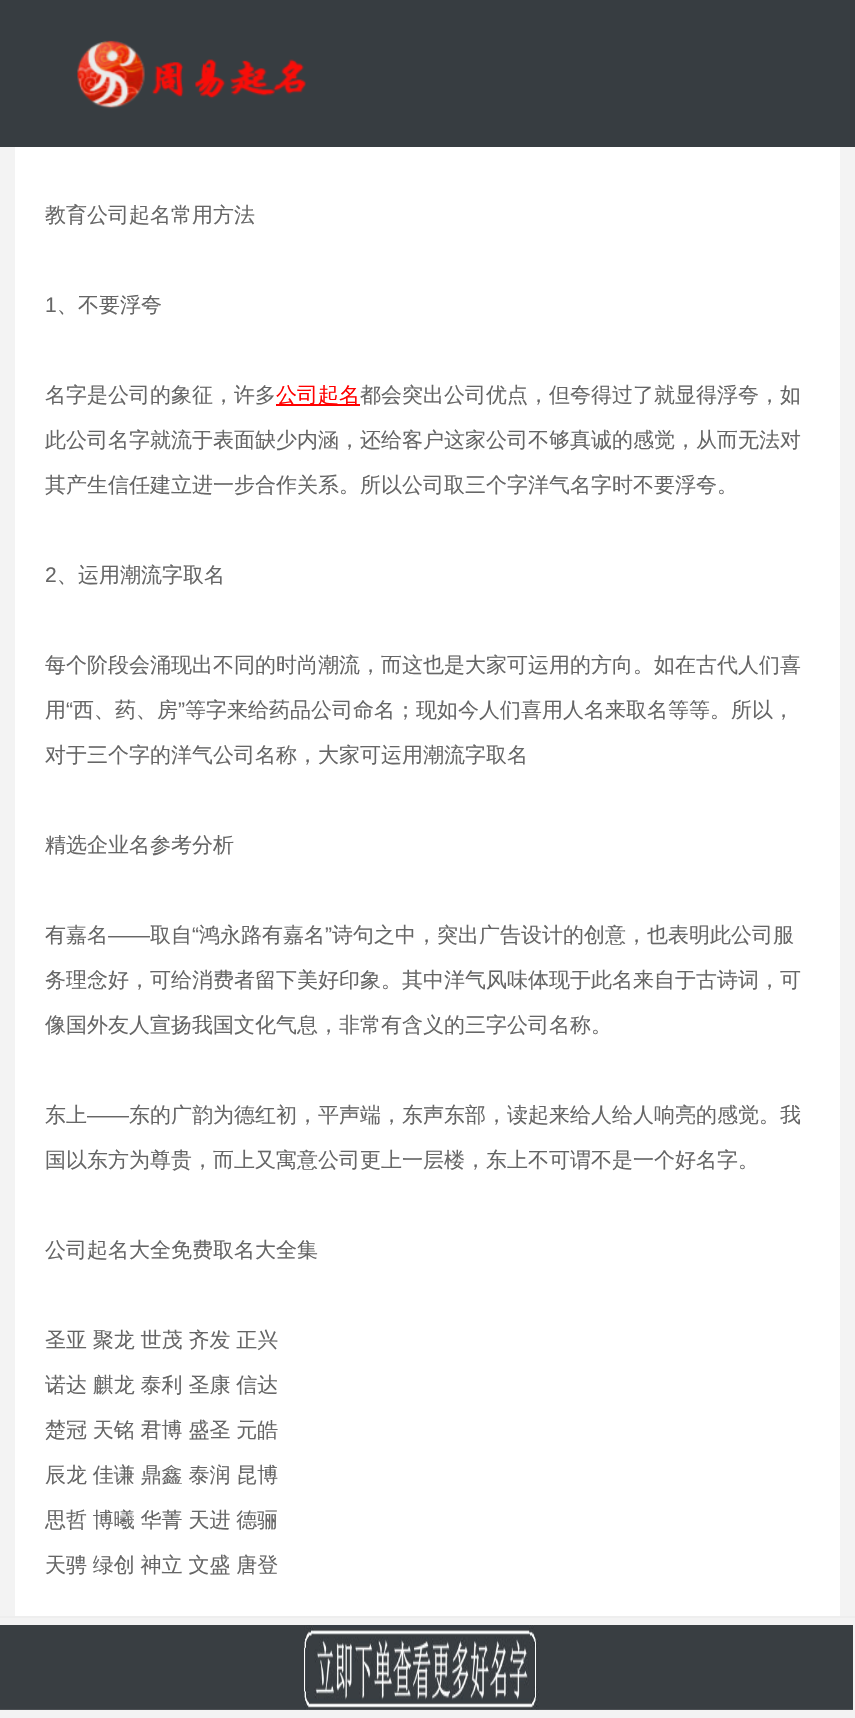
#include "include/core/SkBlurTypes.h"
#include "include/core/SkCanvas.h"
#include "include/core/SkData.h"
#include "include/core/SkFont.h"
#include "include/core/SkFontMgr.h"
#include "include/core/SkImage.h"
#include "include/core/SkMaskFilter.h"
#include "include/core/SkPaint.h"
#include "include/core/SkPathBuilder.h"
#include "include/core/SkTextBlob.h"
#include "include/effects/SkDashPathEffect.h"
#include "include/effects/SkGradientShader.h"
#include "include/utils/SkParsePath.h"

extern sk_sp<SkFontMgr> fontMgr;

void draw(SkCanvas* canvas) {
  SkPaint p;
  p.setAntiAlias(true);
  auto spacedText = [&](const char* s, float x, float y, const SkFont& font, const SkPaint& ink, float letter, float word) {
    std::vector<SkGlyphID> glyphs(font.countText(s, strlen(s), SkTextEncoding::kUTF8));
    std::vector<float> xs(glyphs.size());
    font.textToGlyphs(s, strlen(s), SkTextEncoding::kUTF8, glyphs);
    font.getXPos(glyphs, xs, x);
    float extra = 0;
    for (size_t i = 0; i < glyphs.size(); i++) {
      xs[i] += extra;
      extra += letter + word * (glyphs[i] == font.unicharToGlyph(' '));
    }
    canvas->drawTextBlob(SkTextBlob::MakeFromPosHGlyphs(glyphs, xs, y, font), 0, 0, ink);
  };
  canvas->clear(SkColorSetRGB(243, 243, 243));
  p.setColor(SkColorSetRGB(55, 61, 65));
  canvas->drawRect(SkRect::MakeLTRB(0, 0, 855, 147), p);
  canvas->drawImageRect(SkImages::DeferredFromEncodedData(SkData::MakeFromFileName("images/1.png")), SkRect::MakeLTRB(77, 40, 306, 109), SkSamplingOptions());
  p.setColor(SK_ColorWHITE);
  canvas->drawRect(SkRect::MakeLTRB(15, 147, 840, 1616), p);
  p.setColor(SkColorSetRGB(255, 0, 0));
  canvas->drawRect(SkRect::MakeLTRB(276, 404, 360, 406), p);
  p.setColor(SkColorSetRGB(238, 238, 238));
  canvas->drawRect(SkRect::MakeLTRB(0, 1616, 855, 1618), p);
  canvas->drawImageRect(SkImages::DeferredFromEncodedData(SkData::MakeFromFileName("images/2.png")), SkRect::MakeLTRB(0, 1625, 853, 1710), SkSamplingOptions());
  SkFont font1(fontMgr->matchFamilyStyle("WenQuanYi Zen Hei", SkFontStyle(500, SkFontStyle::kNormal_Width, SkFontStyle::kUpright_Slant)), 21);
  font1.setSubpixel(true);
  p.setColor(SkColorSetRGB(102, 102, 102));
  canvas->drawString("教育公司起名常用方法", 45, 222, font1, p);
  SkFont font2(fontMgr->matchFamilyStyle("Liberation Sans", SkFontStyle::Normal()), 21);
  font2.setSubpixel(true);
  canvas->drawString("1", 45, 312, font2, p);
  canvas->drawString("、不要浮夸", 57, 312, font1, p);
  canvas->drawString("名字是公司的象征，许多", 45, 402, font1, p);
  p.setColor(SkColorSetRGB(255, 0, 0));
  canvas->drawString("公司起名", 276, 402, font1, p);
  p.setColor(SkColorSetRGB(102, 102, 102));
  canvas->drawString("都会突出公司优点，但夸得过了就显得浮夸，如", 360, 402, font1, p);
  canvas->drawString("此公司名字就流于表面缺少内涵，还给客户这家公司不够真诚的感觉，从而无法对", 45, 447, font1, p);
  canvas->drawString("其产生信任建立进一步合作关系。所以公司取三个字洋气名字时不要浮夸。", 45, 492, font1, p);
  canvas->drawString("2", 45, 582, font2, p);
  canvas->drawString("、运用潮流字取名", 57, 582, font1, p);
  canvas->drawString("每个阶段会涌现出不同的时尚潮流，而这也是大家可运用的方向。如在古代人们喜", 45, 672, font1, p);
  canvas->drawString("用", 45, 717, font1, p);
  canvas->drawString("“", 66, 717, font2, p);
  canvas->drawString("西、药、房", 73, 717, font1, p);
  canvas->drawString("”", 178, 717, font2, p);
  canvas->drawString("等字来给药品公司命名；现如今人们喜用人名来取名等等。所以，", 185, 717, font1, p);
  canvas->drawString("对于三个字的洋气公司名称，大家可运用潮流字取名", 45, 762, font1, p);
  canvas->drawString("精选企业名参考分析", 45, 852, font1, p);
  canvas->drawString("有嘉名", 45, 942, font1, p);
  canvas->drawString("取自", 150, 942, font1, p);
  canvas->drawString("“", 192, 942, font2, p);
  canvas->drawString("鸿永路有嘉名", 199, 942, font1, p);
  canvas->drawString("”", 325, 942, font2, p);
  canvas->drawString("诗句之中，突出广告设计的创意，也表明此公司服", 332, 942, font1, p);
  canvas->drawString("——", 108, 942, font2, p);
  canvas->drawString("务理念好，可给消费者留下美好印象。其中洋气风味体现于此名来自于古诗词，可", 45, 987, font1, p);
  canvas->drawString("像国外友人宣扬我国文化气息，非常有含义的三字公司名称。", 45, 1032, font1, p);
  canvas->drawString("东上", 45, 1122, font1, p);
  canvas->drawString("——", 87, 1122, font2, p);
  canvas->drawString("东的广韵为德红初，平声端，东声东部，读起来给人给人响亮的感觉。我", 129, 1122, font1, p);
  canvas->drawString("国以东方为尊贵，而上又寓意公司更上一层楼，东上不可谓不是一个好名字。", 45, 1167, font1, p);
  canvas->drawString("公司起名大全免费取名大全集", 45, 1257, font1, p);
  spacedText("圣亚 聚龙 世茂 齐发 正兴", 45, 1347, font1, p, 0, -0.5f);
  spacedText("诺达 麒龙 泰利 圣康 信达", 45, 1392, font1, p, 0, -0.5f);
  spacedText("楚冠 天铭 君博 盛圣 元皓", 45, 1437, font1, p, 0, -0.5f);
  spacedText("辰龙 佳谦 鼎鑫 泰润 昆博", 45, 1482, font1, p, 0, -0.5f);
  spacedText("思哲 博曦 华菁 天进 德骊", 45, 1527, font1, p, 0, -0.5f);
  spacedText("天骋 绿创 神立 文盛 唐登", 45, 1572, font1, p, 0, -0.5f);
}
